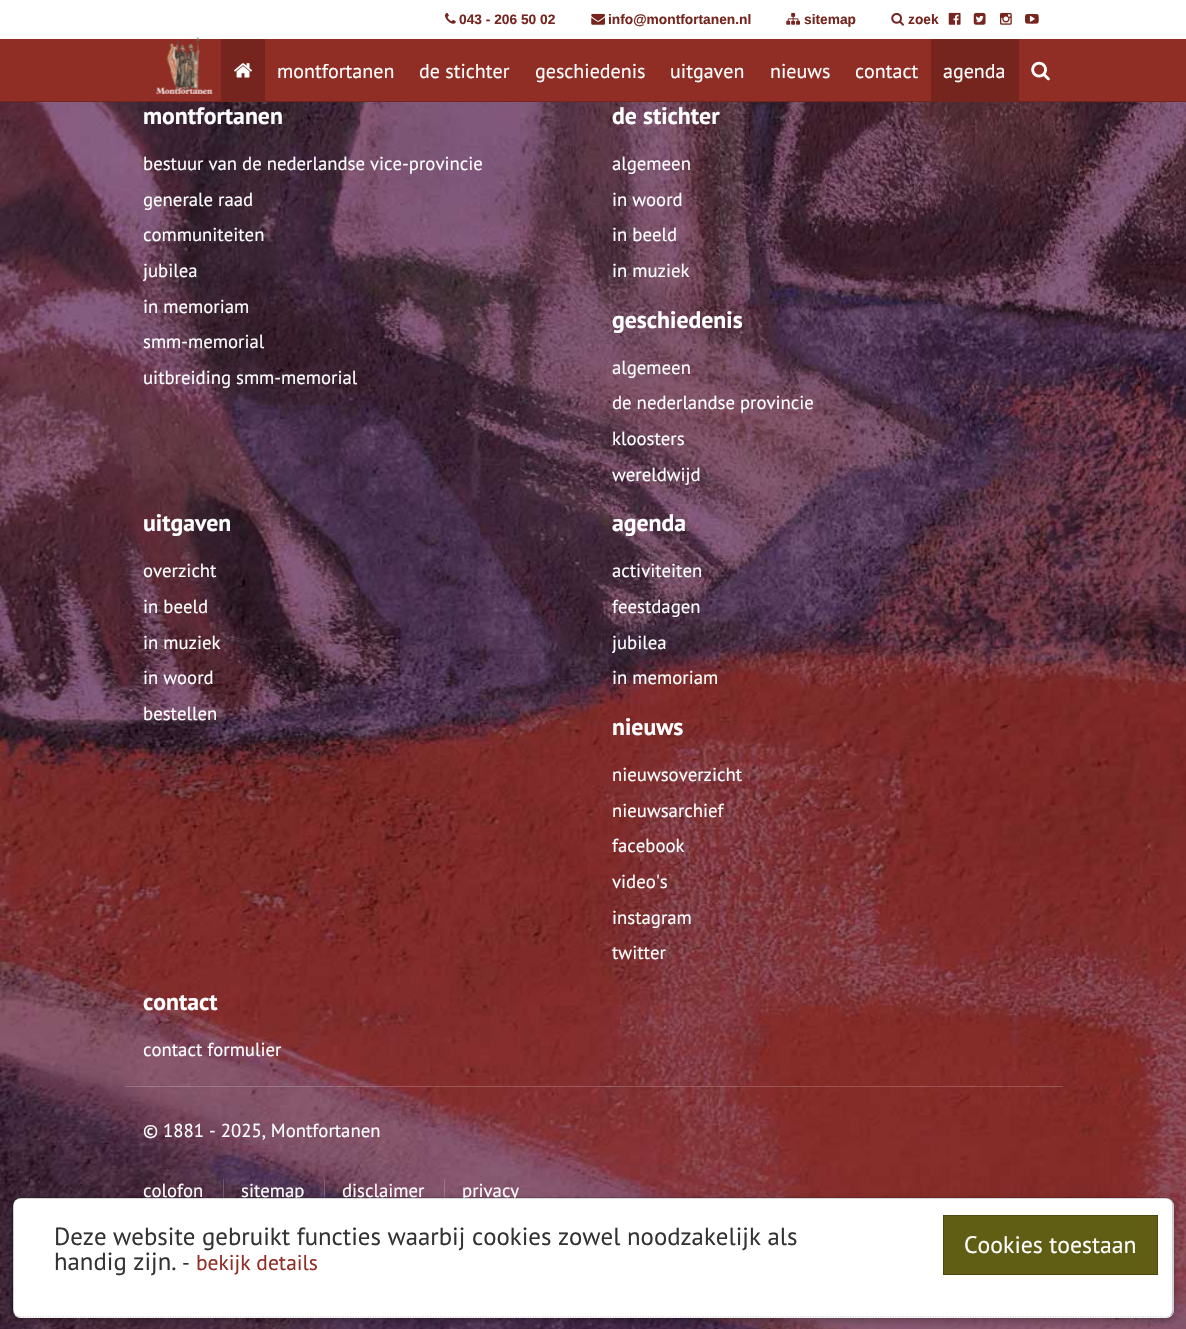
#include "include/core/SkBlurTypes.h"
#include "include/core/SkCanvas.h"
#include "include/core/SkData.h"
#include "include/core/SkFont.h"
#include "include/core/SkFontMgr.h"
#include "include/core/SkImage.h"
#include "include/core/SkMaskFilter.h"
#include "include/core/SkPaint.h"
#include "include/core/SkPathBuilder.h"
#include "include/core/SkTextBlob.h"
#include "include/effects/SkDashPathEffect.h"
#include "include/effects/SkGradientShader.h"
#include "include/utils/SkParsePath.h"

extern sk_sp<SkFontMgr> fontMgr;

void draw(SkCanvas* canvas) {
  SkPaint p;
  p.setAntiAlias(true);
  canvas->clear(SK_ColorWHITE);
  p.setColor(SkColorSetRGB(144, 45, 37));
  canvas->drawRect(SkRect::MakeLTRB(0, 39, 1186, 101), p);
  p.setColor(SkColorSetRGB(118, 37, 30));
  canvas->drawRect(SkRect::MakeLTRB(0, 101, 1186, 102), p);
  canvas->drawImageRect(SkImages::DeferredFromEncodedData(SkData::MakeFromFileName("images/1.png")), SkRect::MakeLTRB(445, 13, 456, 24), SkSamplingOptions());
  canvas->drawImageRect(SkImages::DeferredFromEncodedData(SkData::MakeFromFileName("images/2.png")), SkRect::MakeLTRB(591, 13, 605, 25), SkSamplingOptions());
  canvas->drawImageRect(SkImages::DeferredFromEncodedData(SkData::MakeFromFileName("images/3.png")), SkRect::MakeLTRB(786, 12, 800, 25), SkSamplingOptions());
  canvas->drawImageRect(SkImages::DeferredFromEncodedData(SkData::MakeFromFileName("images/4.png")), SkRect::MakeLTRB(891, 12, 904, 26), SkSamplingOptions());
  canvas->drawImageRect(SkImages::DeferredFromEncodedData(SkData::MakeFromFileName("images/5.png")), SkRect::MakeLTRB(948, 12, 961, 25), SkSamplingOptions());
  canvas->drawImageRect(SkImages::DeferredFromEncodedData(SkData::MakeFromFileName("images/6.png")), SkRect::MakeLTRB(973, 12, 986, 25), SkSamplingOptions());
  canvas->drawImageRect(SkImages::DeferredFromEncodedData(SkData::MakeFromFileName("images/7.png")), SkRect::MakeLTRB(1000, 12, 1012, 25), SkSamplingOptions());
  canvas->drawImageRect(SkImages::DeferredFromEncodedData(SkData::MakeFromFileName("images/8.png")), SkRect::MakeLTRB(1025, 13, 1039, 24), SkSamplingOptions());
  canvas->drawImageRect(SkImages::DeferredFromEncodedData(SkData::MakeFromFileName("images/9.png")), SkRect::MakeLTRB(156, 37, 213, 94), SkSamplingOptions());
  canvas->drawRect(SkRect::MakeLTRB(221, 39, 265, 101), p);
  canvas->drawImageRect(SkImages::DeferredFromEncodedData(SkData::MakeFromFileName("images/10.png")), SkRect::MakeLTRB(234, 63, 252, 78), SkSamplingOptions());
  canvas->drawRect(SkRect::MakeLTRB(931, 39, 1019, 101), p);
  canvas->drawImageRect(SkImages::DeferredFromEncodedData(SkData::MakeFromFileName("images/11.png")), SkRect::MakeLTRB(1031, 61, 1050, 81), SkSamplingOptions());
  canvas->drawImageRect(SkImages::DeferredFromEncodedData(SkData::MakeFromFileName("images/12.png")), SkRect::MakeLTRB(0, 102, 1186, 1329), SkSamplingOptions());
  p.setColor(SkColorSetARGB(51, 255, 255, 255));
  canvas->drawRect(SkRect::MakeLTRB(125, 1086, 1063, 1087), p);
  canvas->drawRect(SkRect::MakeLTRB(223, 1179, 224, 1203), p);
  canvas->drawRect(SkRect::MakeLTRB(324, 1179, 325, 1203), p);
  canvas->drawRect(SkRect::MakeLTRB(444, 1179, 445, 1203), p);
  p.setColor(SkColorSetARGB(77, 0, 0, 0));
  p.setMaskFilter(SkMaskFilter::MakeBlur(kNormal_SkBlurStyle, 4.5f));
  canvas->drawRoundRect(SkRect::MakeLTRB(13, 1201, 1174, 1321), 8, 8, p);
  p.setMaskFilter(nullptr);
  p.setColor(SK_ColorWHITE);
  canvas->drawRoundRect(SkRect::MakeLTRB(13, 1198, 1174, 1318), 8, 8, p);
  p.setStyle(SkPaint::kStroke_Style);
  p.setStrokeWidth(1.2f);
  p.setColor(SkColorSetRGB(204, 204, 204));
  p.setPathEffect(SkDashPathEffect::Make({{1.25f, 1.25f}}, 0));
  canvas->drawPath(SkPathBuilder().moveTo(1171, 1315).cubicTo(1170, 1316, 1168, 1317, 1166, 1317).lineTo(20, 1317).cubicTo(18, 1317, 16.5f, 1316, 15, 1315).detach(), p);
  p.setPathEffect(nullptr);
  SkFont font1(fontMgr->matchFamilyStyle("Liberation Sans", SkFontStyle::Bold()), 13.75f);
  font1.setSubpixel(true);
  p.setStyle(SkPaint::kFill_Style);
  p.setColor(SkColorSetRGB(118, 37, 30));
  canvas->drawString("043 - 206 50 02", 459, 24, font1, p);
  canvas->drawString("info@montfortanen.nl", 608, 24, font1, p);
  canvas->drawString("sitemap", 804, 24, font1, p);
  canvas->drawString("zoek", 908, 24, font1, p);
  SkFont font2(fontMgr->matchFamilyStyle("PT Sans", SkFontStyle::Normal()), 20);
  font2.setSubpixel(true);
  p.setColor(SK_ColorWHITE);
  canvas->drawString("montfortanen", 277, 78, font2, p);
  canvas->drawString("de stichter", 419, 78, font2, p);
  canvas->drawString("geschiedenis", 535, 78, font2, p);
  canvas->drawString("uitgaven", 670, 78, font2, p);
  canvas->drawString("nieuws", 770, 78, font2, p);
  canvas->drawString("contact", 855, 78, font2, p);
  canvas->drawString("agenda", 943, 78, font2, p);
  SkFont font3(fontMgr->matchFamilyStyle("PT Sans", SkFontStyle::Bold()), 23.75f);
  font3.setSubpixel(true);
  canvas->drawString("montfortanen", 143, 124, font3, p);
  SkFont font4(fontMgr->matchFamilyStyle("PT Sans", SkFontStyle::Normal()), 18.75f);
  font4.setSubpixel(true);
  canvas->drawString("bestuur van de nederlandse vice-provincie", 143, 170, font4, p);
  canvas->drawString("generale raad", 143, 206, font4, p);
  canvas->drawString("communiteiten", 143, 241, font4, p);
  canvas->drawString("jubilea", 143, 277, font4, p);
  canvas->drawString("in memoriam", 143, 313, font4, p);
  canvas->drawString("smm-memorial", 143, 348, font4, p);
  canvas->drawString("uitbreiding smm-memorial", 143, 384, font4, p);
  canvas->drawString("de stichter", 612, 124, font3, p);
  canvas->drawString("algemeen", 612, 170, font4, p);
  canvas->drawString("in woord", 612, 206, font4, p);
  canvas->drawString("in beeld", 612, 241, font4, p);
  canvas->drawString("in muziek", 612, 277, font4, p);
  canvas->drawString("geschiedenis", 612, 328, font3, p);
  canvas->drawString("algemeen", 612, 374, font4, p);
  canvas->drawString("de nederlandse provincie", 612, 409, font4, p);
  canvas->drawString("kloosters", 612, 445, font4, p);
  canvas->drawString("wereldwijd", 612, 481, font4, p);
  canvas->drawString("uitgaven", 143, 531, font3, p);
  canvas->drawString("overzicht", 143, 577, font4, p);
  canvas->drawString("in beeld", 143, 613, font4, p);
  canvas->drawString("in muziek", 143, 649, font4, p);
  canvas->drawString("in woord", 143, 684, font4, p);
  canvas->drawString("bestellen", 143, 720, font4, p);
  canvas->drawString("agenda", 612, 531, font3, p);
  canvas->drawString("activiteiten", 612, 577, font4, p);
  canvas->drawString("feestdagen", 612, 613, font4, p);
  canvas->drawString("jubilea", 612, 649, font4, p);
  canvas->drawString("in memoriam", 612, 684, font4, p);
  canvas->drawString("nieuws", 612, 735, font3, p);
  canvas->drawString("nieuwsoverzicht", 612, 781, font4, p);
  canvas->drawString("nieuwsarchief", 612, 817, font4, p);
  canvas->drawString("facebook", 612, 852, font4, p);
  canvas->drawString("video's", 612, 888, font4, p);
  canvas->drawString("instagram", 612, 924, font4, p);
  canvas->drawString("twitter", 612, 959, font4, p);
  canvas->drawString("contact", 143, 1010, font3, p);
  canvas->drawString("contact formulier", 143, 1056, font4, p);
  canvas->drawString("© 1881 - 2025, Montfortanen", 143, 1137, font4, p);
  canvas->drawString("colofon", 143, 1197, font4, p);
  canvas->drawString("sitemap", 241, 1197, font4, p);
  canvas->drawString("disclaimer", 342, 1197, font4, p);
  canvas->drawString("privacy", 462, 1197, font4, p);
  p.setStyle(SkPaint::kStroke_Style);
  p.setColor(SkColorSetARGB(77, 0, 0, 0));
  canvas->drawPath(SkPathBuilder().moveTo(15, 1315).cubicTo(14, 1313.5f, 13, 1312, 13, 1310).lineTo(13, 1205).cubicTo(13, 1203, 14, 1201.5f, 15, 1200).cubicTo(16.5f, 1199, 18, 1198, 20, 1198).lineTo(1166, 1198).cubicTo(1168, 1198, 1170, 1199, 1171, 1200).cubicTo(1172.5f, 1201.5f, 1173, 1203, 1173, 1205).lineTo(1173, 1310).cubicTo(1173, 1312, 1172.5f, 1313.5f, 1171, 1315).detach(), p);
  SkFont font5(fontMgr->matchFamilyStyle("PT Sans", SkFontStyle::Normal()), 24.8f);
  font5.setSubpixel(true);
  p.setStyle(SkPaint::kFill_Style);
  p.setColor(SkColorSetRGB(51, 51, 51));
  canvas->drawString("Deze website gebruikt functies waarbij cookies zowel noodzakelijk als", 54, 1245, font5, p);
  canvas->drawString("handig zijn.", 54, 1270, font5, p);
  SkFont font6(fontMgr->matchFamilyStyle("PT Sans", SkFontStyle::Normal()), 21.5f);
  font6.setSubpixel(true);
  canvas->drawString("-", 182, 1270, font6, p);
  p.setColor(SkColorSetRGB(144, 45, 37));
  canvas->drawString("bekijk details", 196, 1270, font6, p);
  p.setColor(SkColorSetRGB(96, 93, 20));
  canvas->drawRect(SkRect::MakeLTRB(943.5f, 1215.5f, 1157.5f, 1274.5f), p);
  p.setStyle(SkPaint::kStroke_Style);
  p.setStrokeWidth(1);
  p.setColor(SkColorSetRGB(75, 73, 16));
  canvas->drawRect(SkRect::MakeLTRB(943.5f, 1215.5f, 1157.5f, 1274.5f), p);
  SkFont font7(fontMgr->matchFamilyStyle("PT Sans", SkFontStyle::Normal()), 23.75f);
  font7.setSubpixel(true);
  p.setStyle(SkPaint::kFill_Style);
  p.setColor(SK_ColorWHITE);
  canvas->drawString("Cookies toestaan", 964, 1253, font7, p);
}
